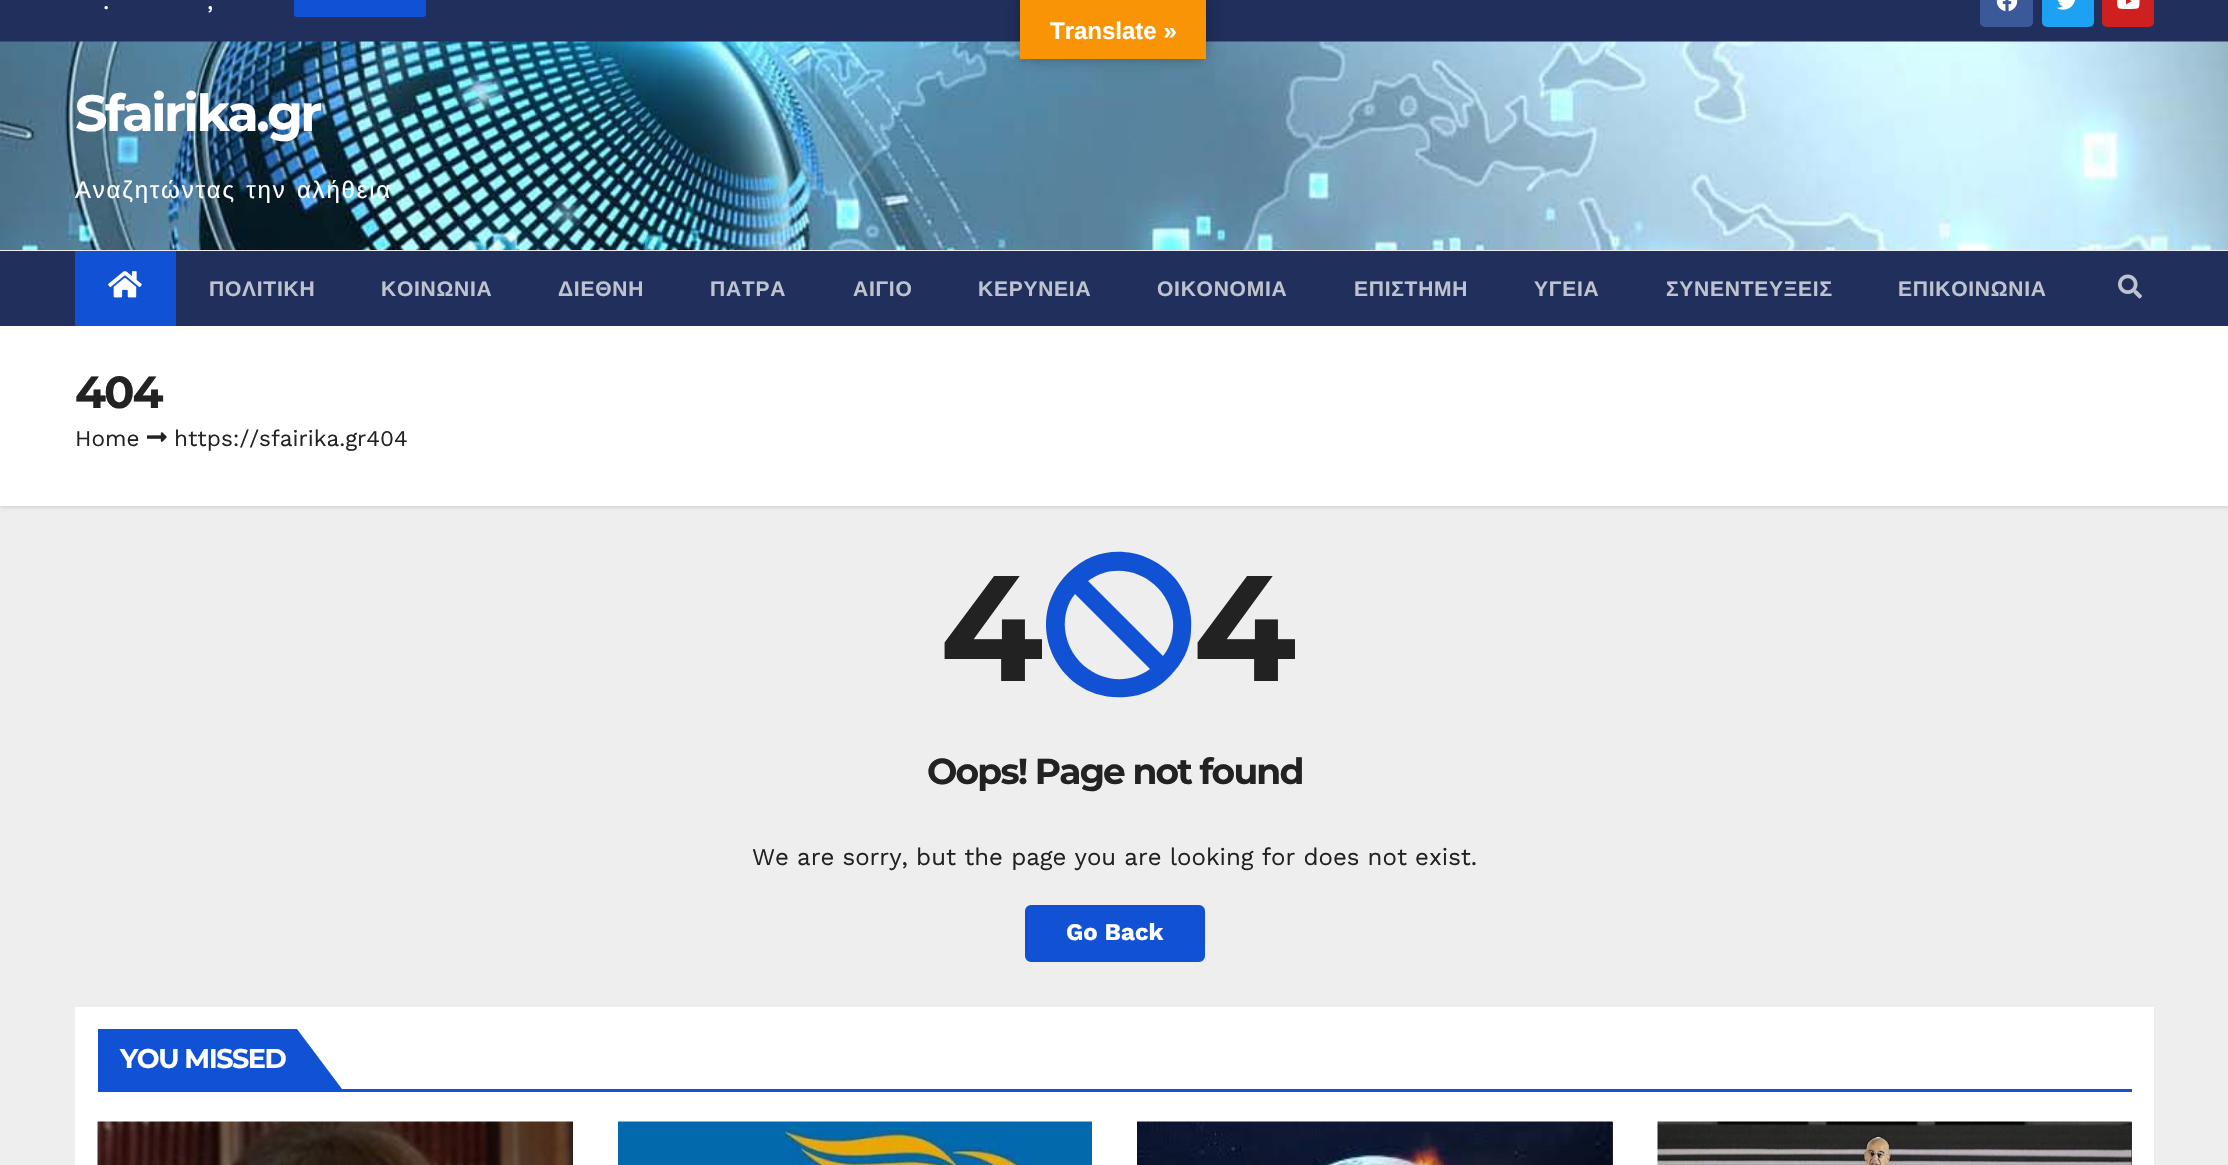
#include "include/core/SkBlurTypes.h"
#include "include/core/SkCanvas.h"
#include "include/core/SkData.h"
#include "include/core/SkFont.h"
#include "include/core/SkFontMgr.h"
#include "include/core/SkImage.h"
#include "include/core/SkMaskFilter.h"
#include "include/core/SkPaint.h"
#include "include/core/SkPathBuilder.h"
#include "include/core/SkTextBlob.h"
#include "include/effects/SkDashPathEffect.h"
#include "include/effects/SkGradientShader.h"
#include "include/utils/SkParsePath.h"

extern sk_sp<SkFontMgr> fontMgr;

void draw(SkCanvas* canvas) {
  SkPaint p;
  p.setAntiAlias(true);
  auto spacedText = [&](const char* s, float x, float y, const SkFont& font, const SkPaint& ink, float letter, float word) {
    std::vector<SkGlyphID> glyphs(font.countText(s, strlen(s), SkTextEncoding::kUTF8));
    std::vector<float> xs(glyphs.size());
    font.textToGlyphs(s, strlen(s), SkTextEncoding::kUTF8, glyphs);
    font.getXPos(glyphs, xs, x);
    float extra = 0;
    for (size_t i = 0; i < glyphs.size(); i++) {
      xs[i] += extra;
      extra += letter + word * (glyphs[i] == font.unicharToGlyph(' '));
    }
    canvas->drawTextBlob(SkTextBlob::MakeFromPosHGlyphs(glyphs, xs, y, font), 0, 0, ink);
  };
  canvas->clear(SkColorSetRGB(238, 238, 238));
  p.setColor(SkColorSetRGB(32, 47, 91));
  canvas->drawRect(SkRect::MakeLTRB(0, 0, 2228, 42), p);
  p.setColor(SkColorSetRGB(17, 81, 211));
  canvas->drawRoundRect(SkRect::MakeLTRB(294, -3, 426, 17), 3, 3, p);
  p.setColor(SkColorSetRGB(59, 89, 152));
  canvas->drawRoundRect(SkRect::MakeLTRB(1980, -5, 2033, 27), 5, 5, p);
  canvas->drawImageRect(SkImages::DeferredFromEncodedData(SkData::MakeFromFileName("images/1.png")), SkRect::MakeLTRB(1996, 0, 2018, 12), SkSamplingOptions());
  p.setColor(SkColorSetRGB(29, 161, 242));
  canvas->drawRoundRect(SkRect::MakeLTRB(2042, -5, 2094, 27), 5, 5, p);
  canvas->drawImageRect(SkImages::DeferredFromEncodedData(SkData::MakeFromFileName("images/2.png")), SkRect::MakeLTRB(2056, 0, 2075, 10), SkSamplingOptions());
  p.setColor(SkColorSetRGB(205, 32, 31));
  canvas->drawRoundRect(SkRect::MakeLTRB(2102, -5, 2154, 27), 5, 5, p);
  canvas->drawImageRect(SkImages::DeferredFromEncodedData(SkData::MakeFromFileName("images/3.png")), SkRect::MakeLTRB(2117, 0, 2140, 9), SkSamplingOptions());
  canvas->drawImageRect(SkImages::DeferredFromEncodedData(SkData::MakeFromFileName("images/4.png")), SkRect::MakeLTRB(0, 41, 2228, 250), SkSamplingOptions());
  p.setColor(SkColorSetARGB(38, 0, 0, 0));
  p.setMaskFilter(SkMaskFilter::MakeBlur(kNormal_SkBlurStyle, 2));
  canvas->drawRect(SkRect::MakeLTRB(0, 327, 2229, 507), p);
  p.setMaskFilter(nullptr);
  p.setColor(SkColorSetRGB(32, 47, 91));
  canvas->drawRect(SkRect::MakeLTRB(0, 251, 2228, 326), p);
  p.setColor(SkColorSetRGB(17, 81, 211));
  canvas->drawRect(SkRect::MakeLTRB(75, 251, 176, 326), p);
  canvas->drawImageRect(SkImages::DeferredFromEncodedData(SkData::MakeFromFileName("images/5.png")), SkRect::MakeLTRB(108, 271, 142, 298), SkSamplingOptions());
  canvas->drawImageRect(SkImages::DeferredFromEncodedData(SkData::MakeFromFileName("images/6.png")), SkRect::MakeLTRB(2118, 274, 2142, 299), SkSamplingOptions());
  p.setColor(SK_ColorWHITE);
  canvas->drawRect(SkRect::MakeLTRB(0, 326, 2228, 506), p);
  canvas->drawImageRect(SkImages::DeferredFromEncodedData(SkData::MakeFromFileName("images/7.png")), SkRect::MakeLTRB(147, 432, 167, 442), SkSamplingOptions());
  p.setColor(SkColorSetRGB(17, 81, 211));
  canvas->drawPath(SkPathBuilder().moveTo(1068, 573).cubicTo(1116, 525, 1198, 564, 1191, 632).cubicTo(1190, 649, 1182, 664, 1170, 676).cubicTo(1159, 688, 1143, 696, 1126, 697).cubicTo(1058, 703, 1019, 622, 1068, 573).close().moveTo(1173, 621).cubicTo(1169, 580, 1122, 556, 1088, 581).lineTo(1163, 656).cubicTo(1171, 646, 1174, 634, 1173, 621).close().moveTo(1065, 629).cubicTo(1069, 670, 1116, 694, 1150, 669).lineTo(1075, 594).cubicTo(1067, 604, 1064, 616, 1065, 629).close().detach(), p);
  canvas->drawRoundRect(SkRect::MakeLTRB(1026.5f, 906.5f, 1203.5f, 960.5f), 4.5f, 4.5f, p);
  p.setStyle(SkPaint::kStroke_Style);
  p.setStrokeWidth(3);
  canvas->drawRoundRect(SkRect::MakeLTRB(1026.5f, 906.5f, 1203.5f, 960.5f), 4.5f, 4.5f, p);
  p.setStyle(SkPaint::kFill_Style);
  p.setColor(SK_ColorWHITE);
  canvas->drawRect(SkRect::MakeLTRB(75, 1007, 2154, 1165), p);
  p.setColor(SkColorSetRGB(17, 81, 211));
  canvas->drawRect(SkRect::MakeLTRB(98, 1089, 2132, 1092), p);
  canvas->drawRect(SkRect::MakeLTRB(98, 1029, 297, 1089), p);
  canvas->drawPath(SkPathBuilder().moveTo(297, 1089).lineTo(297, 1029).lineTo(342, 1089).close().detach(), p);
  canvas->drawImageRect(SkImages::DeferredFromEncodedData(SkData::MakeFromFileName("images/8.png")), SkRect::MakeLTRB(97, 1121, 573, 1165), SkSamplingOptions());
  canvas->drawImageRect(SkImages::DeferredFromEncodedData(SkData::MakeFromFileName("images/9.png")), SkRect::MakeLTRB(618, 1121, 1092, 1165), SkSamplingOptions());
  p.setColor(SkColorSetRGB(51, 51, 51));
  canvas->drawRect(SkRect::MakeLTRB(1612, 1122, 1613, 1165), p);
  canvas->drawImageRect(SkImages::DeferredFromEncodedData(SkData::MakeFromFileName("images/10.png")), SkRect::MakeLTRB(1137, 1121, 1613, 1165), SkSamplingOptions());
  canvas->drawRect(SkRect::MakeLTRB(2131, 1122, 2132, 1165), p);
  canvas->drawImageRect(SkImages::DeferredFromEncodedData(SkData::MakeFromFileName("images/11.png")), SkRect::MakeLTRB(1657, 1121, 2132, 1165), SkSamplingOptions());
  p.setColor(SkColorSetARGB(77, 0, 0, 0));
  p.setMaskFilter(SkMaskFilter::MakeBlur(kNormal_SkBlurStyle, 7));
  canvas->drawRect(SkRect::MakeLTRB(1020, 0, 1206, 59), p);
  p.setMaskFilter(nullptr);
  p.setColor(SkColorSetRGB(248, 148, 6));
  canvas->drawRect(SkRect::MakeLTRB(1020, 0, 1206, 59), p);
  SkFont font1(fontMgr->matchFamilyStyle("Work Sans", SkFontStyle::Normal()), 24);
  font1.setSubpixel(true);
  p.setColor(SK_ColorWHITE);
  canvas->drawString(".", 103, 9, font1, p);
  canvas->drawString(",", 207, 9, font1, p);
  SkFont font2(fontMgr->matchFamilyStyle("Montserrat", SkFontStyle(100, SkFontStyle::kNormal_Width, SkFontStyle::kUpright_Slant)), 51);
  font2.setSubpixel(true);
  spacedText("Sfairika.gr", 75, 131, font2, p, -2.5f, 0);
  SkFont font3(fontMgr->matchFamilyStyle("Liberation Sans", SkFontStyle::Normal()), 24);
  font3.setSubpixel(true);
  spacedText("Αναζητώντας την αλήθεια", 75, 198, font3, p, 1.8f, 2);
  SkFont font4(fontMgr->matchFamilyStyle("Liberation Sans", SkFontStyle::Bold()), 21);
  font4.setSubpixel(true);
  p.setColor(SkColorSetRGB(190, 195, 207));
  spacedText("ΠΟΛΙΤΙΚΗ", 209, 296, font4, p, 0.75f, 0);
  spacedText("ΚΟΙΝΩΝΙΑ", 381, 296, font4, p, 0.75f, 0);
  spacedText("ΔΙΕΘΝΗ", 558, 296, font4, p, 0.75f, 0);
  spacedText("ΠΑΤΡΑ", 710, 296, font4, p, 0.75f, 0);
  spacedText("ΑΙΓΙΟ", 853, 296, font4, p, 0.75f, 0);
  spacedText("ΚΕΡΥΝΕΙΑ", 978, 296, font4, p, 0.75f, 0);
  spacedText("ΟΙΚΟΝΟΜΙΑ", 1157, 296, font4, p, 0.75f, 0);
  spacedText("ΕΠΙΣΤΗΜΗ", 1354, 296, font4, p, 0.75f, 0);
  spacedText("ΥΓΕΙΑ", 1534, 296, font4, p, 0.75f, 0);
  spacedText("ΣΥΝΕΝΤΕΥΞΕΙΣ", 1666, 296, font4, p, 0.75f, 0);
  spacedText("ΕΠΙΚΟΙΝΩΝΙΑ", 1898, 296, font4, p, 0.75f, 0);
  SkFont font5(fontMgr->matchFamilyStyle("Montserrat", SkFontStyle(100, SkFontStyle::kNormal_Width, SkFontStyle::kUpright_Slant)), 45);
  font5.setSubpixel(true);
  p.setColor(SkColorSetRGB(34, 34, 34));
  spacedText("404", 75, 408, font5, p, -2, 0);
  SkFont font6(fontMgr->matchFamilyStyle("Work Sans", SkFontStyle::Normal()), 22.5f);
  font6.setSubpixel(true);
  canvas->drawString("Home", 75, 446, font6, p);
  canvas->drawString("https://sfairika.gr404", 174, 446, font6, p);
  SkFont font7(fontMgr->matchFamilyStyle("Montserrat", SkFontStyle(100, SkFontStyle::kNormal_Width, SkFontStyle::kUpright_Slant)), 150);
  font7.setSubpixel(true);
  spacedText("4", 940, 681, font7, p, -8, 0);
  spacedText("4", 1193, 681, font7, p, -8, 0);
  SkFont font8(fontMgr->matchFamilyStyle("Montserrat", SkFontStyle(100, SkFontStyle::kNormal_Width, SkFontStyle::kUpright_Slant)), 36);
  font8.setSubpixel(true);
  spacedText("Oops! Page not found", 927, 784, font8, p, -1.8f, 0);
  canvas->drawString("We are sorry, but the page you are looking for does not exist.", 752, 865, font1, p);
  SkFont font9(fontMgr->matchFamilyStyle("Work Sans", SkFontStyle::Bold()), 24);
  font9.setSubpixel(true);
  p.setColor(SK_ColorWHITE);
  canvas->drawString("Go Back", 1066, 940, font9, p);
  SkFont font10(fontMgr->matchFamilyStyle("Montserrat", SkFontStyle(100, SkFontStyle::kNormal_Width, SkFontStyle::kUpright_Slant)), 27);
  font10.setSubpixel(true);
  spacedText("YOU MISSED", 120, 1068, font10, p, -1.4f, 0);
  SkFont font11(fontMgr->matchFamilyStyle("Liberation Sans", SkFontStyle::Bold()), 24);
  font11.setSubpixel(true);
  canvas->drawString("Translate »", 1050, 39, font11, p);
}
